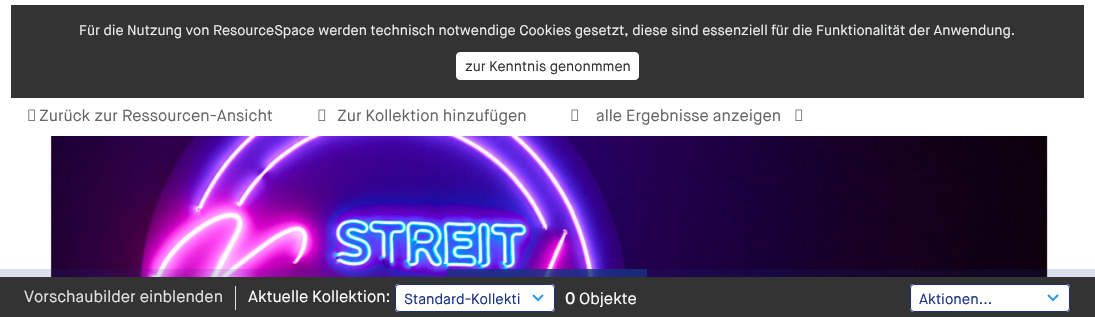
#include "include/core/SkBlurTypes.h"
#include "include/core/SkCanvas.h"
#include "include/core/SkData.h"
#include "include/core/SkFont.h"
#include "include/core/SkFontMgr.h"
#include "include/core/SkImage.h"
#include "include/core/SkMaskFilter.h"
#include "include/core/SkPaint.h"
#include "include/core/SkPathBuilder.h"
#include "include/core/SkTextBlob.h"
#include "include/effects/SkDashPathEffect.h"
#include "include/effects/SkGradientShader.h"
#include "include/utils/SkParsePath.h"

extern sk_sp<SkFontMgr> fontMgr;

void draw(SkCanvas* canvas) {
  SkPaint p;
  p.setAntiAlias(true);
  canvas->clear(SK_ColorWHITE);
  p.setColor(SkColorSetRGB(51, 51, 51));
  canvas->drawRect(SkRect::MakeLTRB(11, 5, 1084, 98), p);
  p.setColor(SK_ColorWHITE);
  canvas->drawRoundRect(SkRect::MakeLTRB(456.5f, 52.5f, 638.5f, 79.5f), 3.5f, 3.5f, p);
  p.setStyle(SkPaint::kStroke_Style);
  p.setStrokeWidth(1);
  canvas->drawRoundRect(SkRect::MakeLTRB(456.5f, 52.5f, 638.5f, 79.5f), 3.5f, 3.5f, p);
  canvas->drawImageRect(SkImages::DeferredFromEncodedData(SkData::MakeFromFileName("images/1.png")), SkRect::MakeLTRB(28, 109, 35, 121), SkSamplingOptions());
  canvas->drawImageRect(SkImages::DeferredFromEncodedData(SkData::MakeFromFileName("images/2.png")), SkRect::MakeLTRB(318, 109, 326, 121), SkSamplingOptions());
  canvas->drawImageRect(SkImages::DeferredFromEncodedData(SkData::MakeFromFileName("images/2.png")), SkRect::MakeLTRB(571, 109, 579, 121), SkSamplingOptions());
  canvas->drawImageRect(SkImages::DeferredFromEncodedData(SkData::MakeFromFileName("images/2.png")), SkRect::MakeLTRB(795, 109, 803, 121), SkSamplingOptions());
  canvas->drawImageRect(SkImages::DeferredFromEncodedData(SkData::MakeFromFileName("images/3.png")), SkRect::MakeLTRB(50, 136, 1048, 277), SkSamplingOptions());
  p.setStyle(SkPaint::kFill_Style);
  p.setColor(SkColorSetARGB(38, 24, 49, 129));
  canvas->drawRect(SkRect::MakeLTRB(0, 269, 1095, 277), p);
  p.setColor(SkColorSetARGB(204, 24, 49, 129));
  canvas->drawRect(SkRect::MakeLTRB(447, 269, 647, 277), p);
  p.setColor(SkColorSetRGB(51, 51, 51));
  canvas->drawRect(SkRect::MakeLTRB(0, 277, 1095, 317), p);
  p.setColor(SkColorSetRGB(224, 224, 224));
  canvas->drawRect(SkRect::MakeLTRB(235, 286, 236, 310), p);
  p.setColor(SK_ColorWHITE);
  canvas->drawRoundRect(SkRect::MakeLTRB(395, 284, 555, 312), 4, 4, p);
  p.setStyle(SkPaint::kStroke_Style);
  p.setStrokeWidth(2);
  p.setColor(SkColorSetRGB(46, 153, 230));
  canvas->drawPath(SkPathBuilder().moveTo(543, 295).lineTo(538, 300).lineTo(533, 295).detach(), p);
  p.setStrokeWidth(1);
  p.setColor(SkColorSetRGB(24, 49, 129));
  canvas->drawRoundRect(SkRect::MakeLTRB(395.5f, 284.5f, 554.5f, 311.5f), 3.5f, 3.5f, p);
  p.setStyle(SkPaint::kFill_Style);
  p.setColor(SK_ColorWHITE);
  canvas->drawRoundRect(SkRect::MakeLTRB(910, 284, 1070, 312), 4, 4, p);
  p.setStyle(SkPaint::kStroke_Style);
  p.setStrokeWidth(2);
  p.setColor(SkColorSetRGB(46, 153, 230));
  canvas->drawPath(SkPathBuilder().moveTo(1058, 295).lineTo(1053, 300).lineTo(1048, 295).detach(), p);
  p.setStrokeWidth(1);
  p.setColor(SkColorSetRGB(24, 49, 129));
  canvas->drawRoundRect(SkRect::MakeLTRB(910.5f, 284.5f, 1069.5f, 311.5f), 3.5f, 3.5f, p);
  SkFont font1(fontMgr->matchFamilyStyle("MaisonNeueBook", SkFontStyle::Normal()), 14);
  font1.setSubpixel(true);
  p.setStyle(SkPaint::kFill_Style);
  p.setColor(SkColorSetRGB(236, 240, 241));
  canvas->drawString("Für die Nutzung von ResourceSpace werden technisch notwendige Cookies gesetzt, diese sind essenziell für die Funktionalität der Anwendung.", 79, 35, font1, p);
  p.setColor(SkColorSetRGB(51, 51, 51));
  canvas->drawString("zur Kenntnis genonmmen", 465, 71, font1, p);
  SkFont font2(fontMgr->matchFamilyStyle("MaisonNeueBook", SkFontStyle::Normal()), 16);
  font2.setSubpixel(true);
  p.setColor(SkColorSetRGB(102, 102, 102));
  canvas->drawString("Zurück zur Ressourcen-Ansicht", 39, 121, font2, p);
  canvas->drawString("Zur Kollektion hinzufügen", 337, 121, font2, p);
  canvas->drawString("alle Ergebnisse anzeigen", 596, 121, font2, p);
  p.setColor(SkColorSetRGB(224, 224, 224));
  canvas->drawString("Vorschaubilder einblenden", 24, 302, font2, p);
  p.setColor(SK_ColorWHITE);
  canvas->drawString("Aktuelle Kollektion:", 248, 302, font2, p);
  SkFont font3(fontMgr->matchFamilyStyle("MaisonNeueBook", SkFontStyle::Normal()), 14.5f);
  font3.setSubpixel(true);
  p.setColor(SkColorSetRGB(24, 49, 129));
  canvas->drawString("Standard-Kollekti", 404, 304, font3, p);
  SkFont font4(fontMgr->matchFamilyStyle("MaisonNeueBook", SkFontStyle::Bold()), 16);
  font4.setSubpixel(true);
  p.setColor(SK_ColorWHITE);
  canvas->drawString("0", 565, 304, font4, p);
  canvas->drawString("Objekte", 579, 304, font2, p);
  p.setColor(SkColorSetRGB(24, 49, 129));
  canvas->drawString("Aktionen...", 919, 304, font3, p);
}
